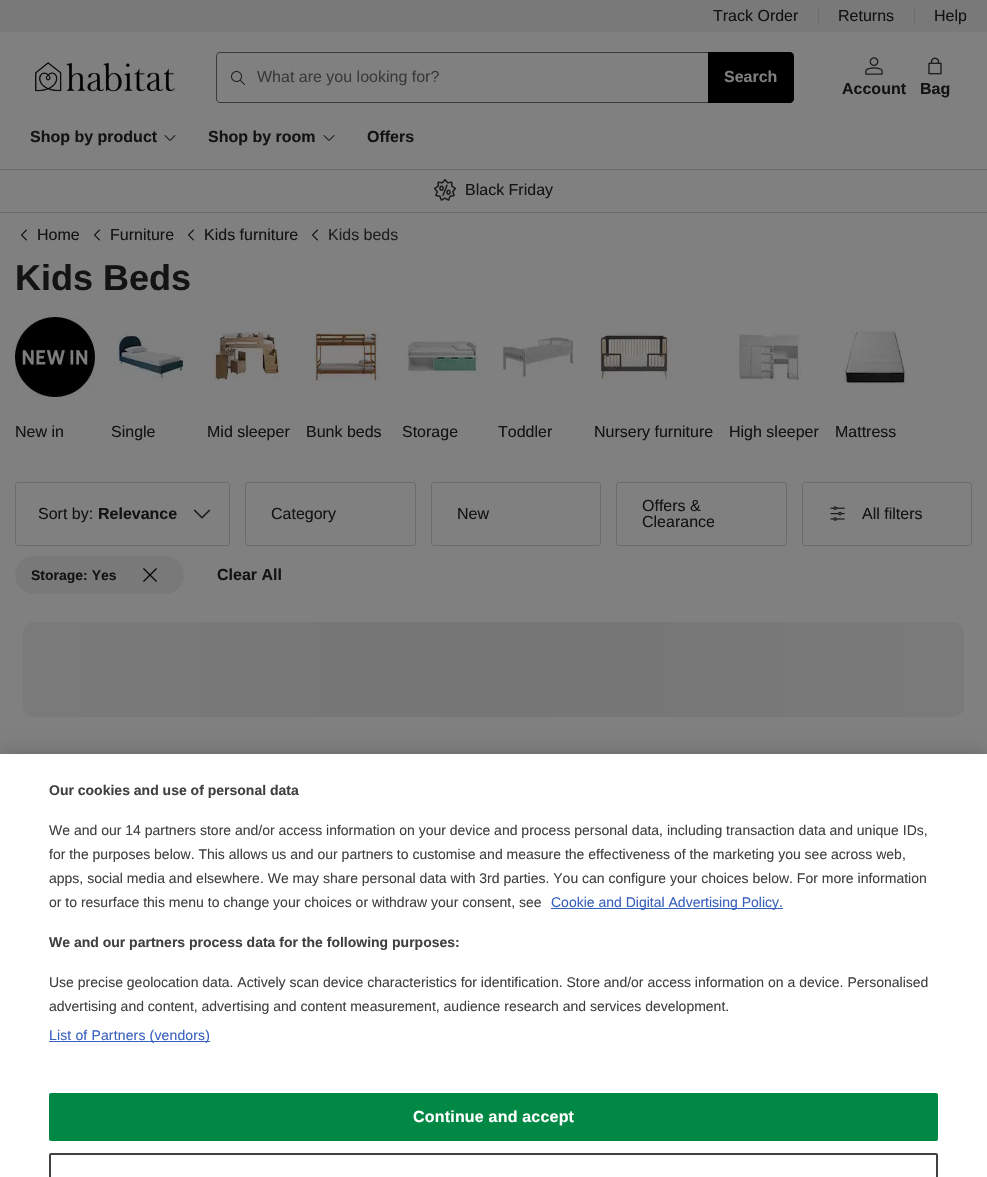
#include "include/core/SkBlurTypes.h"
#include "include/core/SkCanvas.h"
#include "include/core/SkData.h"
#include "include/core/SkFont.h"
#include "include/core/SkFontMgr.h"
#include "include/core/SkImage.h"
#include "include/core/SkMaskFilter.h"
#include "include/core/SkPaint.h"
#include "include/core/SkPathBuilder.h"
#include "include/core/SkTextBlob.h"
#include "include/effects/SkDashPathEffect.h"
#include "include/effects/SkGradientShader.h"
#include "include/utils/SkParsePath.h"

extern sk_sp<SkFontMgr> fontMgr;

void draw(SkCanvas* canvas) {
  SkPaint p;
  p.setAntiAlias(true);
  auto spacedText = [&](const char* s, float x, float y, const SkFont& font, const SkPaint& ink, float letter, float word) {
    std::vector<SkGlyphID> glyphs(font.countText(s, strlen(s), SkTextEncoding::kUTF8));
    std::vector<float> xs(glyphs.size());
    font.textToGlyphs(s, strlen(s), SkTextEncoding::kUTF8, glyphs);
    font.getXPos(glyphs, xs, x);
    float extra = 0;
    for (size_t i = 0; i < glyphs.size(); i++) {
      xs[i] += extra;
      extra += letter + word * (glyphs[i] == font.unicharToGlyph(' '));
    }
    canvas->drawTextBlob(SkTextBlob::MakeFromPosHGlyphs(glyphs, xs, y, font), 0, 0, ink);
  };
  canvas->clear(SkColorSetRGB(128, 128, 128));
  p.setColor(SkColorSetRGB(121, 121, 121));
  canvas->drawRect(SkRect::MakeLTRB(0, 0, 987, 32), p);
  p.setColor(SkColorSetRGB(108, 108, 108));
  canvas->drawRect(SkRect::MakeLTRB(818, 8, 819, 24), p);
  canvas->drawRect(SkRect::MakeLTRB(914, 8, 915, 24), p);
  canvas->drawRect(SkRect::MakeLTRB(0, 169, 987, 170), p);
  canvas->drawImageRect(SkImages::DeferredFromEncodedData(SkData::MakeFromFileName("images/1.png")), SkRect::MakeLTRB(35, 62, 175, 92), SkSamplingOptions());
  p.setColor(SkColorSetRGB(58, 58, 58));
  canvas->drawPath(SkPathBuilder(SkPathFillType::kEvenOdd).moveTo(220, 52).lineTo(708, 52).lineTo(708, 103).lineTo(220, 103).cubicTo(218, 103, 216, 101, 216, 99).lineTo(216, 56).cubicTo(216, 54, 218, 52, 220, 52).close().moveTo(220, 53).lineTo(708, 53).lineTo(708, 102).lineTo(220, 102).cubicTo(218, 102, 217, 101, 217, 99).lineTo(217, 56).cubicTo(217, 54, 218, 53, 220, 53).close().detach(), p);
  canvas->drawImageRect(SkImages::DeferredFromEncodedData(SkData::MakeFromFileName("images/2.png")), SkRect::MakeLTRB(231, 71, 245, 85), SkSamplingOptions());
  p.setColor(SK_ColorBLACK);
  canvas->drawPath(SkPathBuilder().moveTo(708, 52).lineTo(790, 52).cubicTo(792, 52, 794, 54, 794, 56).lineTo(794, 99).cubicTo(794, 101, 792, 103, 790, 103).lineTo(708, 103).close().detach(), p);
  canvas->drawImageRect(SkImages::DeferredFromEncodedData(SkData::MakeFromFileName("images/3.png")), SkRect::MakeLTRB(865, 57, 883, 75), SkSamplingOptions());
  canvas->drawImageRect(SkImages::DeferredFromEncodedData(SkData::MakeFromFileName("images/4.png")), SkRect::MakeLTRB(928, 57, 942, 75), SkSamplingOptions());
  canvas->drawImageRect(SkImages::DeferredFromEncodedData(SkData::MakeFromFileName("images/5.png")), SkRect::MakeLTRB(164, 135, 176, 141), SkSamplingOptions());
  canvas->drawImageRect(SkImages::DeferredFromEncodedData(SkData::MakeFromFileName("images/5.png")), SkRect::MakeLTRB(323, 135, 335, 141), SkSamplingOptions());
  p.setColor(SkColorSetRGB(108, 108, 108));
  canvas->drawRect(SkRect::MakeLTRB(0, 212, 987, 213), p);
  canvas->drawImageRect(SkImages::DeferredFromEncodedData(SkData::MakeFromFileName("images/6.png")), SkRect::MakeLTRB(434, 179, 456, 201), SkSamplingOptions());
  canvas->drawImageRect(SkImages::DeferredFromEncodedData(SkData::MakeFromFileName("images/7.png")), SkRect::MakeLTRB(21, 229, 27, 241), SkSamplingOptions());
  canvas->drawImageRect(SkImages::DeferredFromEncodedData(SkData::MakeFromFileName("images/7.png")), SkRect::MakeLTRB(94, 229, 100, 241), SkSamplingOptions());
  canvas->drawImageRect(SkImages::DeferredFromEncodedData(SkData::MakeFromFileName("images/7.png")), SkRect::MakeLTRB(188, 229, 194, 241), SkSamplingOptions());
  canvas->drawImageRect(SkImages::DeferredFromEncodedData(SkData::MakeFromFileName("images/7.png")), SkRect::MakeLTRB(312, 229, 318, 241), SkSamplingOptions());
  canvas->drawImageRect(SkImages::DeferredFromEncodedData(SkData::MakeFromFileName("images/8.png")), SkRect::MakeLTRB(15, 317, 95, 397), SkSamplingOptions());
  canvas->drawImageRect(SkImages::DeferredFromEncodedData(SkData::MakeFromFileName("images/9.png")), SkRect::MakeLTRB(117, 333, 186, 381), SkSamplingOptions());
  canvas->drawImageRect(SkImages::DeferredFromEncodedData(SkData::MakeFromFileName("images/10.png")), SkRect::MakeLTRB(214, 331, 280, 381), SkSamplingOptions());
  canvas->drawImageRect(SkImages::DeferredFromEncodedData(SkData::MakeFromFileName("images/11.png")), SkRect::MakeLTRB(313, 328, 380, 382), SkSamplingOptions());
  canvas->drawImageRect(SkImages::DeferredFromEncodedData(SkData::MakeFromFileName("images/12.png")), SkRect::MakeLTRB(406, 341, 482, 374), SkSamplingOptions());
  canvas->drawImageRect(SkImages::DeferredFromEncodedData(SkData::MakeFromFileName("images/13.png")), SkRect::MakeLTRB(502, 337, 574, 377), SkSamplingOptions());
  canvas->drawImageRect(SkImages::DeferredFromEncodedData(SkData::MakeFromFileName("images/14.png")), SkRect::MakeLTRB(598, 333, 674, 381), SkSamplingOptions());
  canvas->drawImageRect(SkImages::DeferredFromEncodedData(SkData::MakeFromFileName("images/15.png")), SkRect::MakeLTRB(737, 333, 801, 381), SkSamplingOptions());
  canvas->drawImageRect(SkImages::DeferredFromEncodedData(SkData::MakeFromFileName("images/16.png")), SkRect::MakeLTRB(843, 329, 907, 385), SkSamplingOptions());
  p.setStyle(SkPaint::kStroke_Style);
  p.setStrokeWidth(1);
  canvas->drawRoundRect(SkRect::MakeLTRB(15.5f, 482.5f, 229.5f, 545.5f), 2.5f, 2.5f, p);
  canvas->drawImageRect(SkImages::DeferredFromEncodedData(SkData::MakeFromFileName("images/17.png")), SkRect::MakeLTRB(193, 509, 211, 519), SkSamplingOptions());
  canvas->drawRoundRect(SkRect::MakeLTRB(245.5f, 482.5f, 415.5f, 545.5f), 2.5f, 2.5f, p);
  canvas->drawRoundRect(SkRect::MakeLTRB(431.5f, 482.5f, 600.5f, 545.5f), 2.5f, 2.5f, p);
  canvas->drawRoundRect(SkRect::MakeLTRB(616.5f, 482.5f, 786.5f, 545.5f), 2.5f, 2.5f, p);
  canvas->drawRoundRect(SkRect::MakeLTRB(802.5f, 482.5f, 971.5f, 545.5f), 2.5f, 2.5f, p);
  canvas->drawImageRect(SkImages::DeferredFromEncodedData(SkData::MakeFromFileName("images/18.png")), SkRect::MakeLTRB(830, 506, 845, 521), SkSamplingOptions());
  p.setStyle(SkPaint::kFill_Style);
  p.setColor(SkColorSetRGB(121, 121, 121));
  canvas->drawRoundRect(SkRect::MakeLTRB(15, 556, 184, 594), 19, 19, p);
  canvas->drawImageRect(SkImages::DeferredFromEncodedData(SkData::MakeFromFileName("images/19.png")), SkRect::MakeLTRB(143, 568, 157, 582), SkSamplingOptions());
  {
    const SkColor colors[] = {SkColorSetRGB(122, 122, 122), SkColorSetRGB(118, 118, 118), SkColorSetRGB(122, 122, 122)};
    const float stops[] = {0, 0.5f, 1};
    const SkPoint ends[] = {{23, 622}, {964, 622}};
    p.setShader(SkGradientShader::MakeLinear(ends, colors, stops, 3, SkTileMode::kClamp));
    p.setAlpha(255);
  }
  canvas->drawRoundRect(SkRect::MakeLTRB(23, 622, 964, 717), 10, 10, p);
  p.setShader(nullptr);
  p.setColor(SkColorSetARGB(51, 0, 0, 0));
  p.setMaskFilter(SkMaskFilter::MakeBlur(kNormal_SkBlurStyle, 9));
  canvas->drawRect(SkRect::MakeLTRB(0, 754, 987, 1177), p);
  p.setMaskFilter(nullptr);
  p.setColor(SK_ColorWHITE);
  canvas->drawRect(SkRect::MakeLTRB(0, 754, 987, 1177), p);
  p.setColor(SkColorSetRGB(56, 96, 190));
  canvas->drawRect(SkRect::MakeLTRB(551, 908, 783, 909), p);
  canvas->drawRect(SkRect::MakeLTRB(49, 1041, 210, 1042), p);
  p.setColor(SkColorSetRGB(0, 136, 68));
  canvas->drawRoundRect(SkRect::MakeLTRB(50, 1094, 937, 1140), 1, 1, p);
  p.setStyle(SkPaint::kStroke_Style);
  p.setStrokeWidth(2);
  canvas->drawRoundRect(SkRect::MakeLTRB(50, 1094, 937, 1140), 1, 1, p);
  p.setColor(SkColorSetRGB(64, 64, 64));
  canvas->drawRoundRect(SkRect::MakeLTRB(50, 1154, 937, 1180), 1, 1, p);
  SkFont font1(fontMgr->matchFamilyStyle("Liberation Sans", SkFontStyle::Normal()), 16);
  font1.setSubpixel(true);
  p.setStyle(SkPaint::kFill_Style);
  p.setColor(SkColorSetRGB(19, 19, 19));
  canvas->drawString("Track Order", 713, 21, font1, p);
  canvas->drawString("Returns", 838, 21, font1, p);
  canvas->drawString("Help", 934, 21, font1, p);
  p.setColor(SkColorSetRGB(58, 58, 58));
  canvas->drawString("What are you looking for?", 257, 82, font1, p);
  SkFont font2(fontMgr->matchFamilyStyle("Liberation Sans", SkFontStyle::Bold()), 16);
  font2.setSubpixel(true);
  p.setColor(SkColorSetRGB(128, 128, 128));
  canvas->drawString("Search", 724, 82, font2, p);
  p.setColor(SkColorSetRGB(19, 19, 19));
  canvas->drawString("Account", 842, 94, font2, p);
  canvas->drawString("Bag", 920, 94, font2, p);
  canvas->drawString("Shop by product", 30, 142, font2, p);
  canvas->drawString("Shop by room", 208, 142, font2, p);
  canvas->drawString("Offers", 367, 142, font2, p);
  canvas->drawString("Black Friday", 465, 195, font1, p);
  canvas->drawString("Home", 37, 240, font1, p);
  canvas->drawString("Furniture", 110, 240, font1, p);
  canvas->drawString("Kids furniture", 204, 240, font1, p);
  p.setColor(SkColorSetRGB(32, 32, 32));
  canvas->drawString("Kids beds", 328, 240, font1, p);
  SkFont font3(fontMgr->matchFamilyStyle("Liberation Sans", SkFontStyle::Bold()), 36);
  font3.setSubpixel(true);
  p.setColor(SkColorSetRGB(19, 19, 19));
  canvas->drawString("Kids Beds", 15, 290, font3, p);
  canvas->drawString("New in", 15, 437, font1, p);
  canvas->drawString("Single", 111, 437, font1, p);
  canvas->drawString("Mid sleeper", 207, 437, font1, p);
  canvas->drawString("Bunk beds", 306, 437, font1, p);
  canvas->drawString("Storage", 402, 437, font1, p);
  canvas->drawString("Toddler", 498, 437, font1, p);
  canvas->drawString("Nursery furniture", 594, 437, font1, p);
  canvas->drawString("High sleeper", 729, 437, font1, p);
  canvas->drawString("Mattress", 835, 437, font1, p);
  canvas->drawString("Sort by:", 38, 519, font1, p);
  canvas->drawString("Relevance", 98, 519, font2, p);
  canvas->drawString("Category", 271, 519, font1, p);
  canvas->drawString("New", 457, 519, font1, p);
  canvas->drawString("Offers &", 642, 511, font1, p);
  canvas->drawString("Clearance", 642, 527, font1, p);
  canvas->drawString("All filters", 862, 519, font1, p);
  SkFont font4(fontMgr->matchFamilyStyle("Liberation Sans", SkFontStyle::Bold()), 14);
  font4.setSubpixel(true);
  canvas->drawString("Storage: Yes", 31, 580, font4, p);
  canvas->drawString("Clear All", 217, 580, font2, p);
  p.setColor(SkColorSetRGB(64, 64, 64));
  canvas->drawString("Our cookies and use of personal data", 49, 795, font4, p);
  SkFont font5(fontMgr->matchFamilyStyle("Liberation Sans", SkFontStyle::Normal()), 14);
  font5.setSubpixel(true);
  canvas->drawString("We and our 14 partners store and/or access information on your device and process personal data, including transaction data and unique IDs,", 49, 835, font5, p);
  canvas->drawString("for the purposes below. This allows us and our partners to customise and measure the effectiveness of the marketing you see across web,", 49, 859, font5, p);
  canvas->drawString("apps, social media and elsewhere. We may share personal data with 3rd parties. You can configure your choices below. For more information", 49, 883, font5, p);
  canvas->drawString("or to resurface this menu to change your choices or withdraw your consent, see", 49, 907, font5, p);
  p.setColor(SkColorSetRGB(56, 96, 190));
  canvas->drawString("Cookie and Digital Advertising Policy.", 551, 907, font5, p);
  p.setColor(SkColorSetRGB(64, 64, 64));
  canvas->drawString("We and our partners process data for the following purposes:", 49, 947, font4, p);
  canvas->drawString("Use precise geolocation data. Actively scan device characteristics for identification. Store and/or access information on a device. Personalised", 49, 987, font5, p);
  canvas->drawString("advertising and content, advertising and content measurement, audience research and services development.", 49, 1011, font5, p);
  p.setColor(SkColorSetRGB(56, 96, 190));
  spacedText("List of Partners (vendors)", 49, 1040, font5, p, 0.15f, 0);
  p.setColor(SK_ColorWHITE);
  spacedText("Continue and accept", 413, 1122, font2, p, 0.2f, 0);
}
